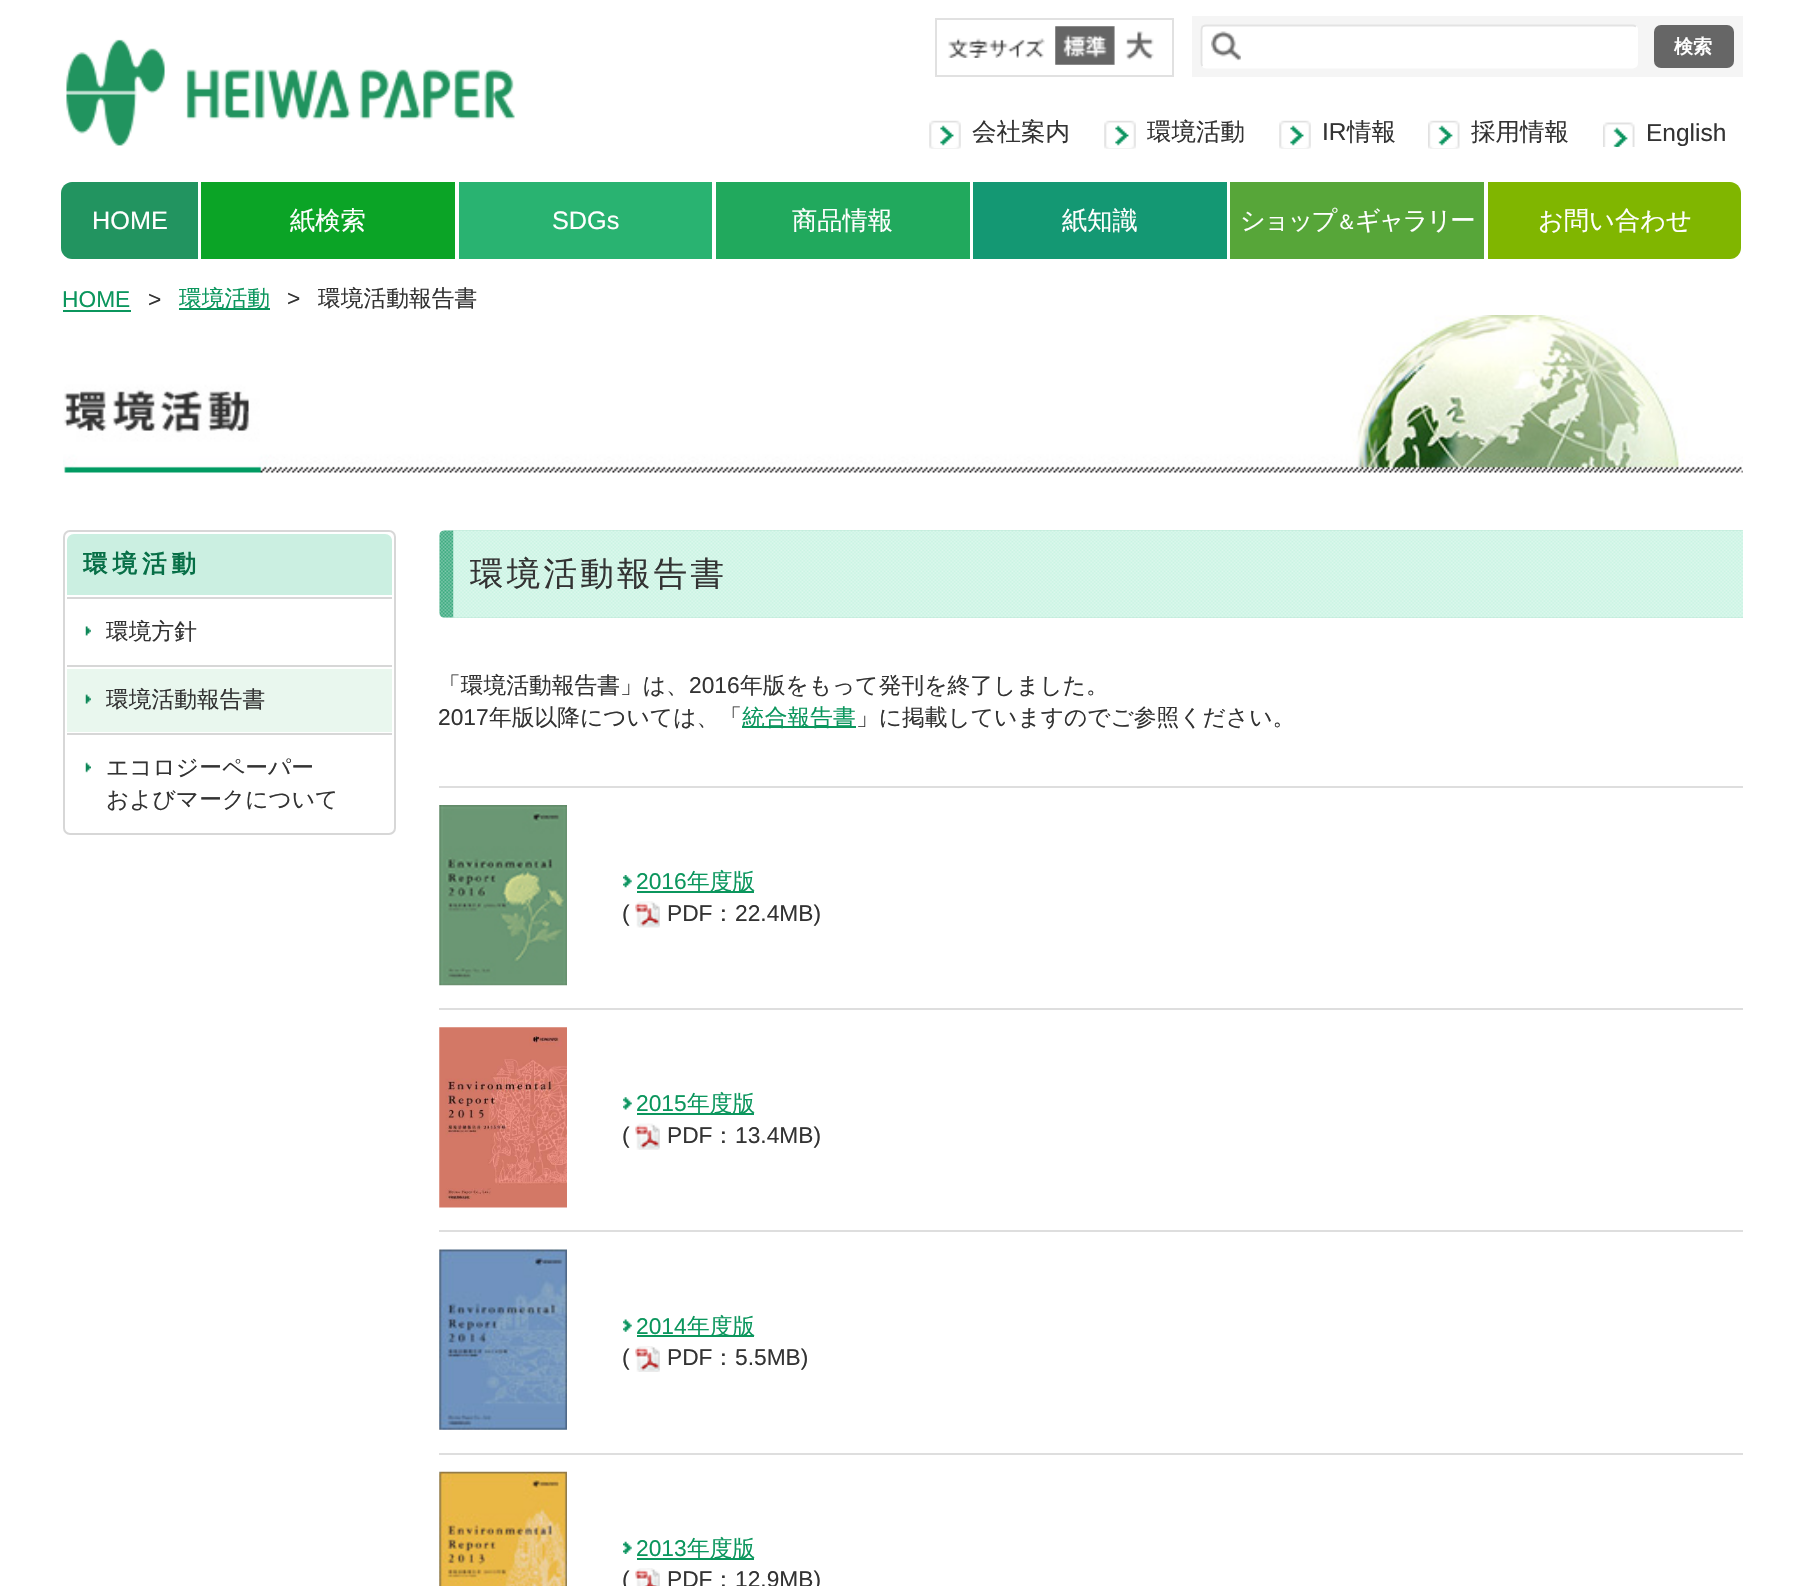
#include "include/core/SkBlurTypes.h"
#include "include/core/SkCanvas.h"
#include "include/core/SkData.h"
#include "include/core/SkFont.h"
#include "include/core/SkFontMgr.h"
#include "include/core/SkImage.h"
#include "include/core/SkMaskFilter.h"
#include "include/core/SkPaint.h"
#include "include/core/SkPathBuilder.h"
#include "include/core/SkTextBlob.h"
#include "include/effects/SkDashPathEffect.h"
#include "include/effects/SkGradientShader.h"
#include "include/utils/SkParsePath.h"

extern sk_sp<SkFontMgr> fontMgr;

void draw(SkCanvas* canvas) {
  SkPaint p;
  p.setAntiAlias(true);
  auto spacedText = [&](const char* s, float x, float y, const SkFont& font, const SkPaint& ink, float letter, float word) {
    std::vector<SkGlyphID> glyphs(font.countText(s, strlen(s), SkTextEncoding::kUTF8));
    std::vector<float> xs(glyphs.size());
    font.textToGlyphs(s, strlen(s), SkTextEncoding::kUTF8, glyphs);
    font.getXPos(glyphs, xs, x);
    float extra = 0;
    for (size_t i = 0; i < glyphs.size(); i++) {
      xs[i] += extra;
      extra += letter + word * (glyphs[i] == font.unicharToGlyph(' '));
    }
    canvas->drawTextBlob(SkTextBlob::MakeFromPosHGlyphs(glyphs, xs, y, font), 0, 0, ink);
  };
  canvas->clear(SK_ColorWHITE);
  canvas->drawImageRect(SkImages::DeferredFromEncodedData(SkData::MakeFromFileName("images/1.png")), SkRect::MakeLTRB(66, 39, 515, 146), SkSamplingOptions());
  p.setStyle(SkPaint::kStroke_Style);
  p.setStrokeWidth(2);
  p.setColor(SkColorSetRGB(225, 225, 225));
  canvas->drawRect(SkRect::MakeLTRB(936, 19, 1173, 76), p);
  canvas->drawImageRect(SkImages::DeferredFromEncodedData(SkData::MakeFromFileName("images/2.png")), SkRect::MakeLTRB(948, 38, 1045, 58), SkSamplingOptions());
  canvas->drawImageRect(SkImages::DeferredFromEncodedData(SkData::MakeFromFileName("images/3.png")), SkRect::MakeLTRB(1055, 26, 1115, 65), SkSamplingOptions());
  canvas->drawImageRect(SkImages::DeferredFromEncodedData(SkData::MakeFromFileName("images/4.png")), SkRect::MakeLTRB(1114, 26, 1154, 65), SkSamplingOptions());
  p.setStyle(SkPaint::kFill_Style);
  p.setColor(SkColorSetRGB(245, 245, 245));
  canvas->drawRect(SkRect::MakeLTRB(1192, 16, 1743, 77), p);
  p.setColor(SK_ColorWHITE);
  canvas->drawRoundRect(SkRect::MakeLTRB(1201, 25, 1638, 68), 5, 5, p);
  canvas->drawImageRect(SkImages::DeferredFromEncodedData(SkData::MakeFromFileName("images/5.png")), SkRect::MakeLTRB(1211, 31, 1241, 61), SkSamplingOptions());
  p.setStyle(SkPaint::kStroke_Style);
  p.setStrokeWidth(1.8f);
  canvas->drawPath(SkPathBuilder().moveTo(1636, 26.5f).cubicTo(1636.5f, 27.5f, 1637, 28.5f, 1637, 30).lineTo(1637, 63).cubicTo(1637, 64, 1636.5f, 65.5f, 1636, 66).cubicTo(1635, 67, 1634, 67.5f, 1633, 67.5f).lineTo(1206, 67.5f).cubicTo(1204.5f, 67.5f, 1203.5f, 67, 1202.5f, 66).detach(), p);
  p.setColor(SkColorSetRGB(227, 227, 227));
  canvas->drawPath(SkPathBuilder().moveTo(1202.5f, 66).cubicTo(1202, 65.5f, 1201.5f, 64, 1201.5f, 63).lineTo(1201.5f, 30).cubicTo(1201.5f, 28.5f, 1202, 27.5f, 1202.5f, 26.5f).cubicTo(1203.5f, 26, 1204.5f, 25.5f, 1206, 25.5f).lineTo(1633, 25.5f).cubicTo(1634, 25.5f, 1635, 26, 1636, 26.5f).detach(), p);
  p.setStyle(SkPaint::kFill_Style);
  p.setColor(SkColorSetRGB(102, 102, 102));
  canvas->drawRoundRect(SkRect::MakeLTRB(1654, 25, 1734, 68), 7, 7, p);
  canvas->drawImageRect(SkImages::DeferredFromEncodedData(SkData::MakeFromFileName("images/6.png")), SkRect::MakeLTRB(929, 120, 961, 149), SkSamplingOptions());
  canvas->drawImageRect(SkImages::DeferredFromEncodedData(SkData::MakeFromFileName("images/6.png")), SkRect::MakeLTRB(1104, 120, 1136, 149), SkSamplingOptions());
  canvas->drawImageRect(SkImages::DeferredFromEncodedData(SkData::MakeFromFileName("images/6.png")), SkRect::MakeLTRB(1279, 120, 1311, 149), SkSamplingOptions());
  canvas->drawImageRect(SkImages::DeferredFromEncodedData(SkData::MakeFromFileName("images/7.png")), SkRect::MakeLTRB(1428, 120, 1460, 149), SkSamplingOptions());
  canvas->drawImageRect(SkImages::DeferredFromEncodedData(SkData::MakeFromFileName("images/8.png")), SkRect::MakeLTRB(1603, 122, 1635, 147), SkSamplingOptions());
  p.setColor(SkColorSetRGB(34, 148, 96));
  canvas->drawPath(SkPathBuilder().moveTo(72, 182).lineTo(198, 182).lineTo(198, 259).lineTo(72, 259).cubicTo(66, 259, 61, 254, 61, 248).lineTo(61, 193).cubicTo(61, 187, 66, 182, 72, 182).close().detach(), p);
  p.setColor(SkColorSetRGB(11, 164, 38));
  canvas->drawRect(SkRect::MakeLTRB(201, 182, 455, 259), p);
  p.setColor(SkColorSetRGB(41, 179, 113));
  canvas->drawRect(SkRect::MakeLTRB(459, 182, 712, 259), p);
  p.setColor(SkColorSetRGB(33, 169, 93));
  canvas->drawRect(SkRect::MakeLTRB(716, 182, 970, 259), p);
  p.setColor(SkColorSetRGB(20, 152, 115));
  canvas->drawRect(SkRect::MakeLTRB(973, 182, 1227, 259), p);
  p.setColor(SkColorSetRGB(87, 166, 57));
  canvas->drawRect(SkRect::MakeLTRB(1230, 182, 1484, 259), p);
  p.setColor(SkColorSetRGB(128, 182, 0));
  canvas->drawPath(SkPathBuilder().moveTo(1488, 182).lineTo(1730, 182).cubicTo(1736, 182, 1741, 187, 1741, 193).lineTo(1741, 248).cubicTo(1741, 254, 1736, 259, 1730, 259).lineTo(1488, 259).close().detach(), p);
  p.setColor(SkColorSetRGB(11, 150, 93));
  canvas->drawRect(SkRect::MakeLTRB(63, 310, 131, 312), p);
  canvas->drawRect(SkRect::MakeLTRB(179, 308, 270, 310), p);
  canvas->drawImageRect(SkImages::DeferredFromEncodedData(SkData::MakeFromFileName("images/9.png")), SkRect::MakeLTRB(63, 315, 1743, 473), SkSamplingOptions());
  p.setStyle(SkPaint::kStroke_Style);
  p.setStrokeWidth(2);
  p.setColor(SkColorSetRGB(215, 215, 215));
  canvas->drawRoundRect(SkRect::MakeLTRB(64, 531, 395, 834), 6, 6, p);
  p.setStyle(SkPaint::kFill_Style);
  p.setColor(SkColorSetRGB(203, 239, 225));
  canvas->drawPath(SkPathBuilder().moveTo(74, 534).lineTo(385, 534).cubicTo(389, 534, 392, 537, 392, 541).lineTo(392, 595).lineTo(67, 595).lineTo(67, 541).cubicTo(67, 537, 70, 534, 74, 534).close().detach(), p);
  p.setColor(SkColorSetRGB(215, 215, 215));
  canvas->drawRect(SkRect::MakeLTRB(67, 597, 392, 599), p);
  canvas->drawImageRect(SkImages::DeferredFromEncodedData(SkData::MakeFromFileName("images/10.png")), SkRect::MakeLTRB(85, 626, 91, 636), SkSamplingOptions());
  canvas->drawRect(SkRect::MakeLTRB(67, 665, 392, 667), p);
  p.setColor(SkColorSetRGB(233, 247, 238));
  canvas->drawRect(SkRect::MakeLTRB(67, 669, 392, 732), p);
  canvas->drawImageRect(SkImages::DeferredFromEncodedData(SkData::MakeFromFileName("images/11.png")), SkRect::MakeLTRB(85, 694, 91, 704), SkSamplingOptions());
  p.setColor(SkColorSetRGB(215, 215, 215));
  canvas->drawRect(SkRect::MakeLTRB(67, 733, 392, 735), p);
  canvas->drawImageRect(SkImages::DeferredFromEncodedData(SkData::MakeFromFileName("images/12.png")), SkRect::MakeLTRB(85, 762, 91, 773), SkSamplingOptions());
  canvas->drawImageRect(SkImages::DeferredFromEncodedData(SkData::MakeFromFileName("images/13.png")), SkRect::MakeLTRB(439, 530, 1743, 618), SkSamplingOptions());
  canvas->drawImageRect(SkImages::DeferredFromEncodedData(SkData::MakeFromFileName("images/14.png")), SkRect::MakeLTRB(453, 530, 1743, 618), SkSamplingOptions());
  p.setColor(SkColorSetRGB(11, 150, 93));
  canvas->drawRect(SkRect::MakeLTRB(742, 726, 856, 728), p);
  p.setColor(SkColorSetRGB(222, 222, 222));
  canvas->drawRect(SkRect::MakeLTRB(439, 786, 1743, 788), p);
  canvas->drawRect(SkRect::MakeLTRB(439, 1008, 1743, 1010), p);
  canvas->drawImageRect(SkImages::DeferredFromEncodedData(SkData::MakeFromFileName("images/15.png")), SkRect::MakeLTRB(439, 805, 567, 986), SkSamplingOptions());
  canvas->drawImageRect(SkImages::DeferredFromEncodedData(SkData::MakeFromFileName("images/16.png")), SkRect::MakeLTRB(623, 875, 632, 888), SkSamplingOptions());
  p.setColor(SkColorSetRGB(11, 150, 93));
  canvas->drawRect(SkRect::MakeLTRB(637, 891, 754, 893), p);
  canvas->drawImageRect(SkImages::DeferredFromEncodedData(SkData::MakeFromFileName("images/17.png")), SkRect::MakeLTRB(635, 901, 660, 928), SkSamplingOptions());
  p.setColor(SkColorSetRGB(222, 222, 222));
  canvas->drawRect(SkRect::MakeLTRB(439, 1230, 1743, 1232), p);
  canvas->drawImageRect(SkImages::DeferredFromEncodedData(SkData::MakeFromFileName("images/18.png")), SkRect::MakeLTRB(439, 1027, 567, 1208), SkSamplingOptions());
  canvas->drawImageRect(SkImages::DeferredFromEncodedData(SkData::MakeFromFileName("images/19.png")), SkRect::MakeLTRB(623, 1097, 632, 1110), SkSamplingOptions());
  p.setColor(SkColorSetRGB(11, 150, 93));
  canvas->drawRect(SkRect::MakeLTRB(637, 1113, 754, 1115), p);
  canvas->drawImageRect(SkImages::DeferredFromEncodedData(SkData::MakeFromFileName("images/20.png")), SkRect::MakeLTRB(635, 1123, 660, 1150), SkSamplingOptions());
  p.setColor(SkColorSetRGB(222, 222, 222));
  canvas->drawRect(SkRect::MakeLTRB(439, 1453, 1743, 1455), p);
  canvas->drawImageRect(SkImages::DeferredFromEncodedData(SkData::MakeFromFileName("images/21.png")), SkRect::MakeLTRB(439, 1249, 567, 1430), SkSamplingOptions());
  canvas->drawImageRect(SkImages::DeferredFromEncodedData(SkData::MakeFromFileName("images/22.png")), SkRect::MakeLTRB(623, 1319, 632, 1332), SkSamplingOptions());
  p.setColor(SkColorSetRGB(11, 150, 93));
  canvas->drawRect(SkRect::MakeLTRB(637, 1335, 754, 1337), p);
  canvas->drawImageRect(SkImages::DeferredFromEncodedData(SkData::MakeFromFileName("images/23.png")), SkRect::MakeLTRB(635, 1346, 660, 1372), SkSamplingOptions());
  canvas->drawImageRect(SkImages::DeferredFromEncodedData(SkData::MakeFromFileName("images/24.png")), SkRect::MakeLTRB(439, 1471, 567, 1586), SkSamplingOptions());
  canvas->drawImageRect(SkImages::DeferredFromEncodedData(SkData::MakeFromFileName("images/25.png")), SkRect::MakeLTRB(623, 1541, 632, 1554), SkSamplingOptions());
  canvas->drawRect(SkRect::MakeLTRB(637, 1558, 754, 1560), p);
  canvas->drawImageRect(SkImages::DeferredFromEncodedData(SkData::MakeFromFileName("images/26.png")), SkRect::MakeLTRB(635, 1568, 660, 1586), SkSamplingOptions());
  SkFont font1(fontMgr->matchFamilyStyle("WenQuanYi Zen Hei", SkFontStyle::Bold()), 19);
  font1.setSubpixel(true);
  p.setColor(SK_ColorWHITE);
  canvas->drawString("検索", 1674, 53, font1, p);
  SkFont font2(fontMgr->matchFamilyStyle("WenQuanYi Zen Hei", SkFontStyle(500, SkFontStyle::kNormal_Width, SkFontStyle::kUpright_Slant)), 24.5f);
  font2.setSubpixel(true);
  p.setColor(SkColorSetRGB(51, 51, 51));
  canvas->drawString("会社案内", 972, 140, font2, p);
  canvas->drawString("環境活動", 1147, 140, font2, p);
  SkFont font3(fontMgr->matchFamilyStyle("Liberation Sans", SkFontStyle::Normal()), 24.5f);
  font3.setSubpixel(true);
  canvas->drawString("IR", 1322, 140, font3, p);
  canvas->drawString("情報", 1347, 140, font2, p);
  canvas->drawString("採用情報", 1471, 140, font2, p);
  canvas->drawString("English", 1646, 141, font3, p);
  SkFont font4(fontMgr->matchFamilyStyle("Liberation Sans", SkFontStyle::Normal()), 25.25f);
  font4.setSubpixel(true);
  p.setColor(SK_ColorWHITE);
  canvas->drawString("HOME", 92, 229, font4, p);
  SkFont font5(fontMgr->matchFamilyStyle("WenQuanYi Zen Hei", SkFontStyle(500, SkFontStyle::kNormal_Width, SkFontStyle::kUpright_Slant)), 25.25f);
  font5.setSubpixel(true);
  canvas->drawString("紙検索", 290, 229, font5, p);
  canvas->drawString("SDGs", 552, 229, font4, p);
  canvas->drawString("商品情報", 792, 229, font5, p);
  canvas->drawString("紙知識", 1062, 229, font5, p);
  spacedText("ショップ", 1240, 229, font5, p, -2, 0);
  SkFont font6(fontMgr->matchFamilyStyle("WenQuanYi Zen Hei", SkFontStyle(500, SkFontStyle::kNormal_Width, SkFontStyle::kUpright_Slant)), 21);
  font6.setSubpixel(true);
  spacedText("＆", 1336, 229, font6, p, -2, 0);
  spacedText("ギャラリー", 1355, 229, font5, p, -2, 0);
  canvas->drawString("お問い合わせ", 1538, 229, font5, p);
  SkFont font7(fontMgr->matchFamilyStyle("Liberation Sans", SkFontStyle::Normal()), 22.75f);
  font7.setSubpixel(true);
  p.setColor(SkColorSetRGB(11, 150, 93));
  canvas->drawString("HOME", 62, 307, font7, p);
  p.setColor(SkColorSetRGB(51, 51, 51));
  canvas->drawString(">", 148, 307, font7, p);
  SkFont font8(fontMgr->matchFamilyStyle("WenQuanYi Zen Hei", SkFontStyle(500, SkFontStyle::kNormal_Width, SkFontStyle::kUpright_Slant)), 22.75f);
  font8.setSubpixel(true);
  p.setColor(SkColorSetRGB(11, 150, 93));
  canvas->drawString("環境活動", 179, 306, font8, p);
  p.setColor(SkColorSetRGB(51, 51, 51));
  canvas->drawString(">", 287, 306, font7, p);
  canvas->drawString("環境活動報告書", 318, 306, font8, p);
  SkFont font9(fontMgr->matchFamilyStyle("WenQuanYi Zen Hei", SkFontStyle::Bold()), 24.5f);
  font9.setSubpixel(true);
  p.setColor(SkColorSetRGB(7, 111, 71));
  spacedText("環境活動", 83, 572, font9, p, 5, 0);
  p.setColor(SkColorSetRGB(51, 51, 51));
  canvas->drawString("環境方針", 106, 639, font8, p);
  canvas->drawString("環境活動報告書", 106, 707, font8, p);
  canvas->drawString("エコロジーペーパー", 106, 775, font8, p);
  canvas->drawString("およびマークについて", 106, 807, font8, p);
  SkFont font10(fontMgr->matchFamilyStyle("WenQuanYi Zen Hei", SkFontStyle(500, SkFontStyle::kNormal_Width, SkFontStyle::kUpright_Slant)), 33.5f);
  font10.setSubpixel(true);
  spacedText("環境活動報告書", 470, 585, font10, p, 3.25f, 0);
  canvas->drawString("「環境活動報告書」は、", 438, 693, font8, p);
  canvas->drawString("2016", 689, 693, font7, p);
  canvas->drawString("年版をもって発刊を終了しました。", 740, 693, font8, p);
  canvas->drawString("2017", 438, 725, font7, p);
  canvas->drawString("年版以降については、「", 489, 725, font8, p);
  p.setColor(SkColorSetRGB(11, 150, 93));
  canvas->drawString("統合報告書", 742, 725, font8, p);
  p.setColor(SkColorSetRGB(51, 51, 51));
  canvas->drawString("」に掲載していますのでご参照ください。", 856, 725, font8, p);
  p.setColor(SkColorSetRGB(11, 150, 93));
  canvas->drawString("2016", 636, 889, font7, p);
  canvas->drawString("年度版", 687, 889, font8, p);
  p.setColor(SkColorSetRGB(51, 51, 51));
  canvas->drawString("(", 622, 921, font7, p);
  canvas->drawString("PDF", 667, 921, font7, p);
  canvas->drawString("：", 712, 921, font8, p);
  canvas->drawString("22.4MB)", 735, 921, font7, p);
  p.setColor(SkColorSetRGB(11, 150, 93));
  canvas->drawString("2015", 636, 1111, font7, p);
  canvas->drawString("年度版", 687, 1111, font8, p);
  p.setColor(SkColorSetRGB(51, 51, 51));
  canvas->drawString("(", 622, 1143, font7, p);
  canvas->drawString("PDF", 667, 1143, font7, p);
  canvas->drawString("：", 712, 1143, font8, p);
  canvas->drawString("13.4MB)", 735, 1143, font7, p);
  p.setColor(SkColorSetRGB(11, 150, 93));
  canvas->drawString("2014", 636, 1334, font7, p);
  canvas->drawString("年度版", 687, 1334, font8, p);
  p.setColor(SkColorSetRGB(51, 51, 51));
  canvas->drawString("(", 622, 1365, font7, p);
  canvas->drawString("PDF", 667, 1365, font7, p);
  canvas->drawString("：", 712, 1365, font8, p);
  canvas->drawString("5.5MB)", 735, 1365, font7, p);
  p.setColor(SkColorSetRGB(11, 150, 93));
  canvas->drawString("2013", 636, 1556, font7, p);
  canvas->drawString("年度版", 687, 1556, font8, p);
  p.setColor(SkColorSetRGB(51, 51, 51));
  canvas->drawString("(", 622, 1587, font7, p);
  canvas->drawString("PDF", 667, 1587, font7, p);
  canvas->drawString("：", 712, 1587, font8, p);
  canvas->drawString("12.9MB)", 735, 1587, font7, p);
}
